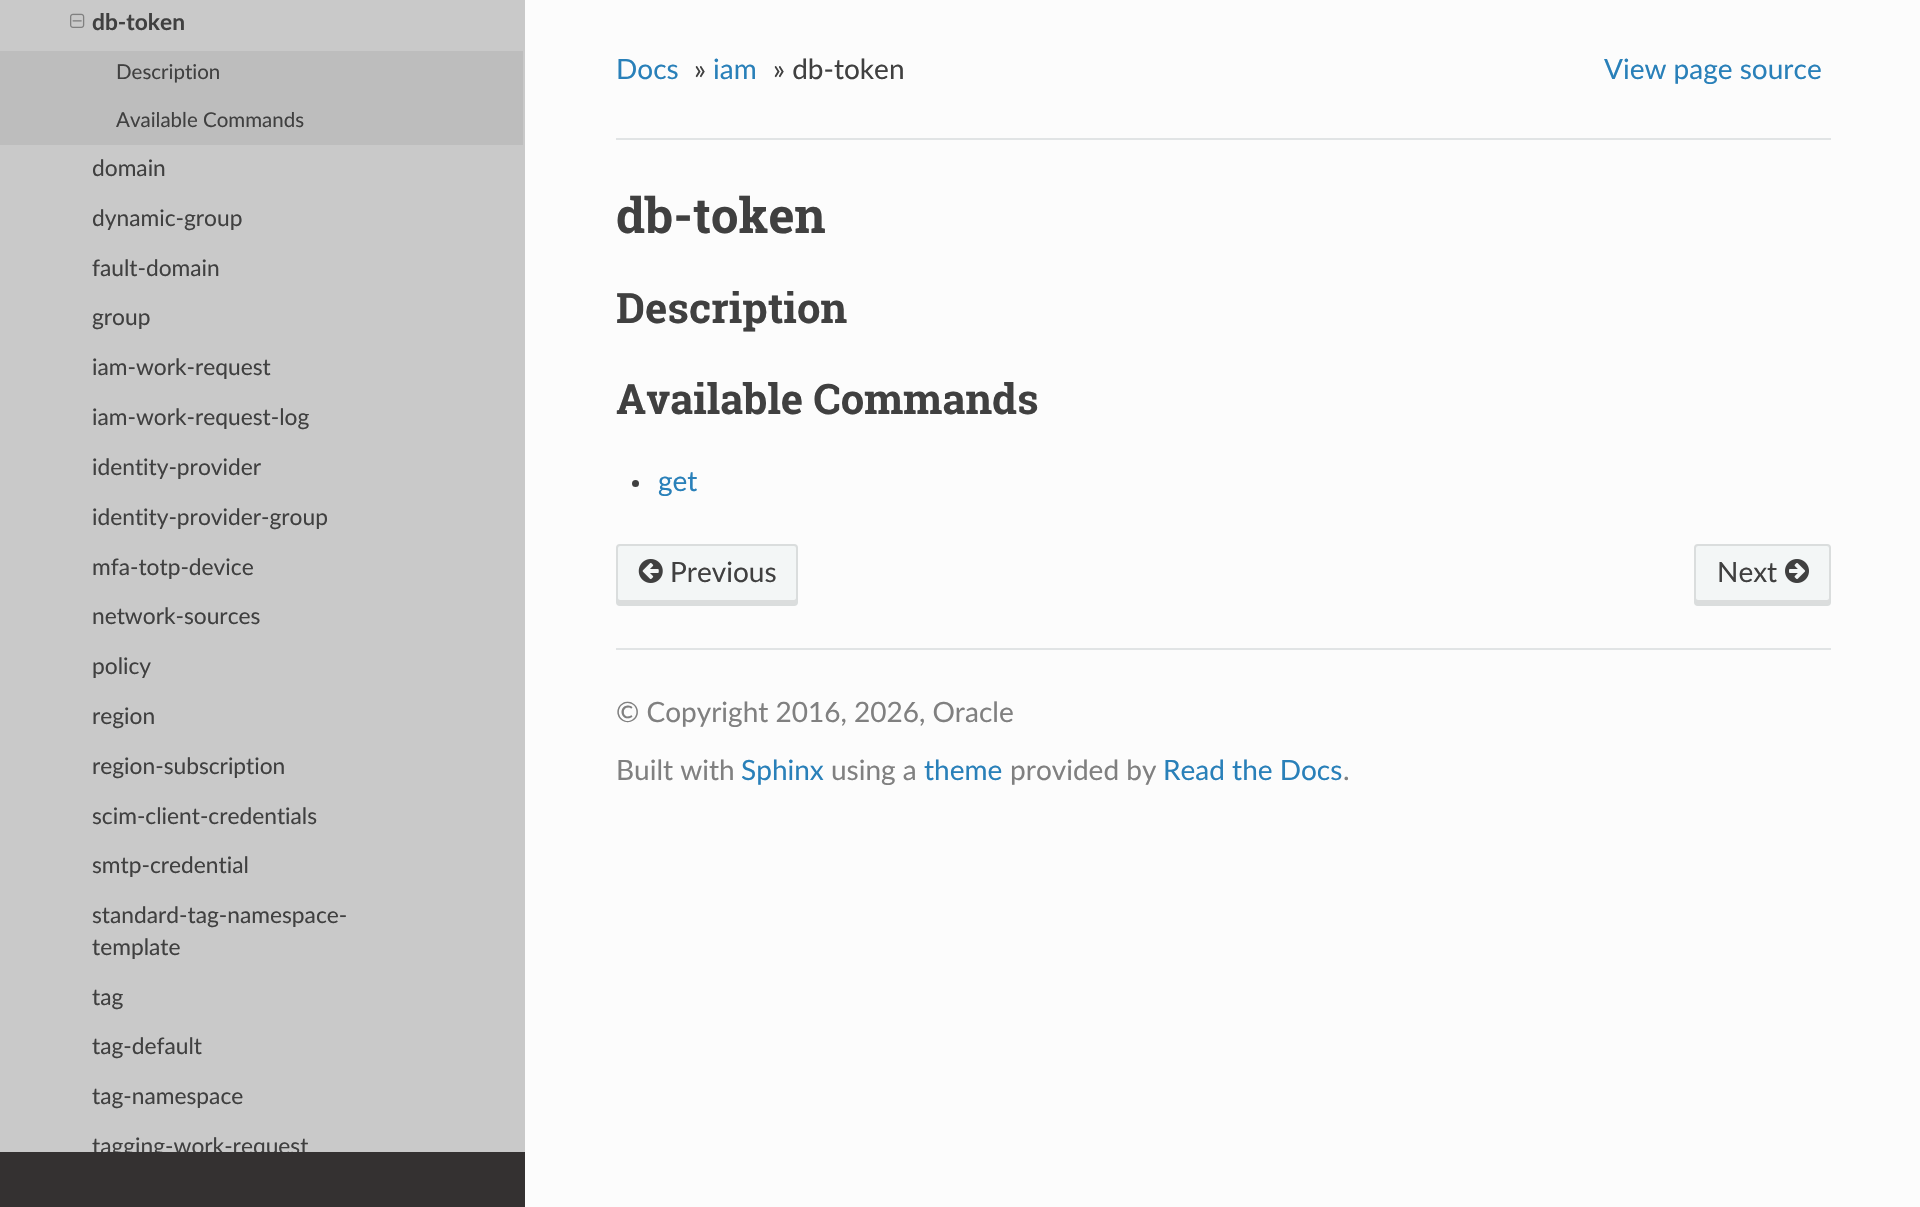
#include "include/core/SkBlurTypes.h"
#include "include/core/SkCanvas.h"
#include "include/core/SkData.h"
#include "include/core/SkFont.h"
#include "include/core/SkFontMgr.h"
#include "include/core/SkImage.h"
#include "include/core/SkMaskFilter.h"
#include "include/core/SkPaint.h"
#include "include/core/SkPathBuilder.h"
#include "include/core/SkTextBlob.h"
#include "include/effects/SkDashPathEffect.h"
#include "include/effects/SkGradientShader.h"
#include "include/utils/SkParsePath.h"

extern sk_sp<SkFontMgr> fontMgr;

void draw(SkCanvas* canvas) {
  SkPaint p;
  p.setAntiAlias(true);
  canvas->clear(SkColorSetRGB(252, 252, 252));
  p.setColor(SkColorSetRGB(52, 49, 49));
  canvas->drawRect(SkRect::MakeLTRB(0, 1152, 525, 1207), p);
  p.setColor(SkColorSetRGB(201, 201, 201));
  canvas->drawRect(SkRect::MakeLTRB(0, 0, 525, 51), p);
  canvas->drawImageRect(SkImages::DeferredFromEncodedData(SkData::MakeFromFileName("images/1.png")), SkRect::MakeLTRB(70, 13, 85, 28), SkSamplingOptions());
  p.setColor(SkColorSetRGB(189, 189, 189));
  canvas->drawRect(SkRect::MakeLTRB(0, 51, 523, 145), p);
  p.setColor(SkColorSetRGB(201, 201, 201));
  canvas->drawRect(SkRect::MakeLTRB(523, 51, 525, 145), p);
  canvas->drawRect(SkRect::MakeLTRB(0, 145, 525, 1152), p);
  p.setColor(SkColorSetRGB(225, 228, 229));
  canvas->drawRect(SkRect::MakeLTRB(616, 138, 1831, 140), p);
  p.setColor(SkColorSetRGB(64, 64, 64));
  canvas->drawCircle(635.5f, 483.5f, 3.5f, p);
  p.setColor(SkColorSetRGB(243, 246, 246));
  canvas->drawRoundRect(SkRect::MakeLTRB(616, 544, 798, 606), 4, 4, p);
  p.setColor(SkColorSetRGB(219, 221, 221));
  canvas->drawPath(SkPathBuilder().moveTo(618, 598).lineTo(618, 602).cubicTo(618, 603, 619, 604, 620, 604).lineTo(794, 604).cubicTo(795, 604, 796, 603, 796, 602).lineTo(796, 598).cubicTo(796, 599, 795, 600, 794, 600).lineTo(620, 600).cubicTo(619, 600, 618, 599, 618, 598).close().detach(), p);
  p.setStyle(SkPaint::kStroke_Style);
  p.setStrokeWidth(2);
  p.setColor(SkColorSetARGB(26, 0, 0, 0));
  canvas->drawRoundRect(SkRect::MakeLTRB(617, 545, 797, 605), 3, 3, p);
  canvas->drawImageRect(SkImages::DeferredFromEncodedData(SkData::MakeFromFileName("images/2.png")), SkRect::MakeLTRB(638, 559, 663, 583), SkSamplingOptions());
  p.setStyle(SkPaint::kFill_Style);
  p.setColor(SkColorSetRGB(243, 246, 246));
  canvas->drawRoundRect(SkRect::MakeLTRB(1694, 544, 1831, 606), 4, 4, p);
  p.setColor(SkColorSetRGB(219, 221, 221));
  canvas->drawPath(SkPathBuilder().moveTo(1696, 598).lineTo(1696, 602).cubicTo(1696, 603, 1697, 604, 1698, 604).lineTo(1827, 604).cubicTo(1828, 604, 1829, 603, 1829, 602).lineTo(1829, 598).cubicTo(1829, 599, 1828, 600, 1827, 600).lineTo(1698, 600).cubicTo(1697, 600, 1696, 599, 1696, 598).close().detach(), p);
  p.setStyle(SkPaint::kStroke_Style);
  p.setColor(SkColorSetARGB(26, 0, 0, 0));
  canvas->drawRoundRect(SkRect::MakeLTRB(1695, 545, 1830, 605), 3, 3, p);
  canvas->drawImageRect(SkImages::DeferredFromEncodedData(SkData::MakeFromFileName("images/3.png")), SkRect::MakeLTRB(1785, 559, 1809, 583), SkSamplingOptions());
  p.setStyle(SkPaint::kFill_Style);
  p.setColor(SkColorSetRGB(225, 228, 229));
  canvas->drawRect(SkRect::MakeLTRB(616, 648, 1831, 650), p);
  SkFont font1(fontMgr->matchFamilyStyle("Lato", SkFontStyle::Bold()), 22.75f);
  font1.setSubpixel(true);
  p.setColor(SkColorSetRGB(64, 64, 64));
  canvas->drawString("db-token", 92, 30, font1, p);
  SkFont font2(fontMgr->matchFamilyStyle("Lato", SkFontStyle::Normal()), 20.5f);
  font2.setSubpixel(true);
  canvas->drawString("Description", 116, 79, font2, p);
  canvas->drawString("Available Commands", 116, 127, font2, p);
  SkFont font3(fontMgr->matchFamilyStyle("Lato", SkFontStyle::Normal()), 22.75f);
  font3.setSubpixel(true);
  canvas->drawString("domain", 92, 176, font3, p);
  canvas->drawString("dynamic-group", 92, 226, font3, p);
  canvas->drawString("fault-domain", 92, 276, font3, p);
  canvas->drawString("group", 92, 325, font3, p);
  canvas->drawString("iam-work-request", 92, 375, font3, p);
  canvas->drawString("iam-work-request-log", 92, 425, font3, p);
  canvas->drawString("identity-provider", 92, 475, font3, p);
  canvas->drawString("identity-provider-group", 92, 525, font3, p);
  canvas->drawString("mfa-totp-device", 92, 575, font3, p);
  canvas->drawString("network-sources", 92, 624, font3, p);
  canvas->drawString("policy", 92, 674, font3, p);
  canvas->drawString("region", 92, 724, font3, p);
  canvas->drawString("region-subscription", 92, 774, font3, p);
  canvas->drawString("scim-client-credentials", 92, 824, font3, p);
  canvas->drawString("smtp-credential", 92, 873, font3, p);
  canvas->drawString("standard-tag-namespace-", 92, 923, font3, p);
  canvas->drawString("template", 92, 955, font3, p);
  canvas->drawString("tag", 92, 1005, font3, p);
  canvas->drawString("tag-default", 92, 1054, font3, p);
  canvas->drawString("tag-namespace", 92, 1104, font3, p);
  canvas->save();
  canvas->clipRect(SkRect::MakeLTRB(0, 0, 525, 1152));
  canvas->drawString("tagging-work-request", 92, 1154, font3, p);
  canvas->restore();
  SkFont font4(fontMgr->matchFamilyStyle("Lato", SkFontStyle::Normal()), 28);
  font4.setSubpixel(true);
  p.setColor(SkColorSetRGB(41, 128, 185));
  canvas->drawString("Docs", 616, 79, font4, p);
  p.setColor(SkColorSetRGB(64, 64, 64));
  canvas->drawString("»", 694, 79, font4, p);
  p.setColor(SkColorSetRGB(41, 128, 185));
  canvas->drawString("iam", 713, 79, font4, p);
  p.setColor(SkColorSetRGB(64, 64, 64));
  canvas->drawString("» db-token", 773, 79, font4, p);
  p.setColor(SkColorSetRGB(41, 128, 185));
  canvas->drawString("View page source", 1604, 79, font4, p);
  SkFont font5(fontMgr->matchFamilyStyle("Roboto Slab", SkFontStyle::Bold()), 49);
  font5.setSubpixel(true);
  p.setColor(SkColorSetRGB(64, 64, 64));
  canvas->drawString("db-token", 616, 233, font5, p);
  SkFont font6(fontMgr->matchFamilyStyle("Roboto Slab", SkFontStyle::Bold()), 42);
  font6.setSubpixel(true);
  canvas->drawString("Description", 616, 323, font6, p);
  canvas->drawString("Available Commands", 616, 414, font6, p);
  p.setColor(SkColorSetRGB(41, 128, 185));
  canvas->drawString("get", 658, 491, font4, p);
  p.setColor(SkColorSetRGB(64, 64, 64));
  canvas->drawString("Previous", 670, 582, font4, p);
  canvas->drawString("Next", 1717, 582, font4, p);
  p.setColor(SkColorSetRGB(128, 128, 128));
  canvas->drawString("© Copyright 2016, 2026, Oracle", 616, 722, font4, p);
  canvas->drawString("Built with", 616, 780, font4, p);
  p.setColor(SkColorSetRGB(41, 128, 185));
  canvas->drawString("Sphinx", 741, 780, font4, p);
  p.setColor(SkColorSetRGB(128, 128, 128));
  canvas->drawString("using a", 831, 780, font4, p);
  p.setColor(SkColorSetRGB(41, 128, 185));
  canvas->drawString("theme", 924, 780, font4, p);
  p.setColor(SkColorSetRGB(128, 128, 128));
  canvas->drawString("provided by", 1010, 780, font4, p);
  p.setColor(SkColorSetRGB(41, 128, 185));
  canvas->drawString("Read the Docs", 1163, 780, font4, p);
  p.setColor(SkColorSetRGB(128, 128, 128));
  canvas->drawString(".", 1343, 780, font4, p);
}
